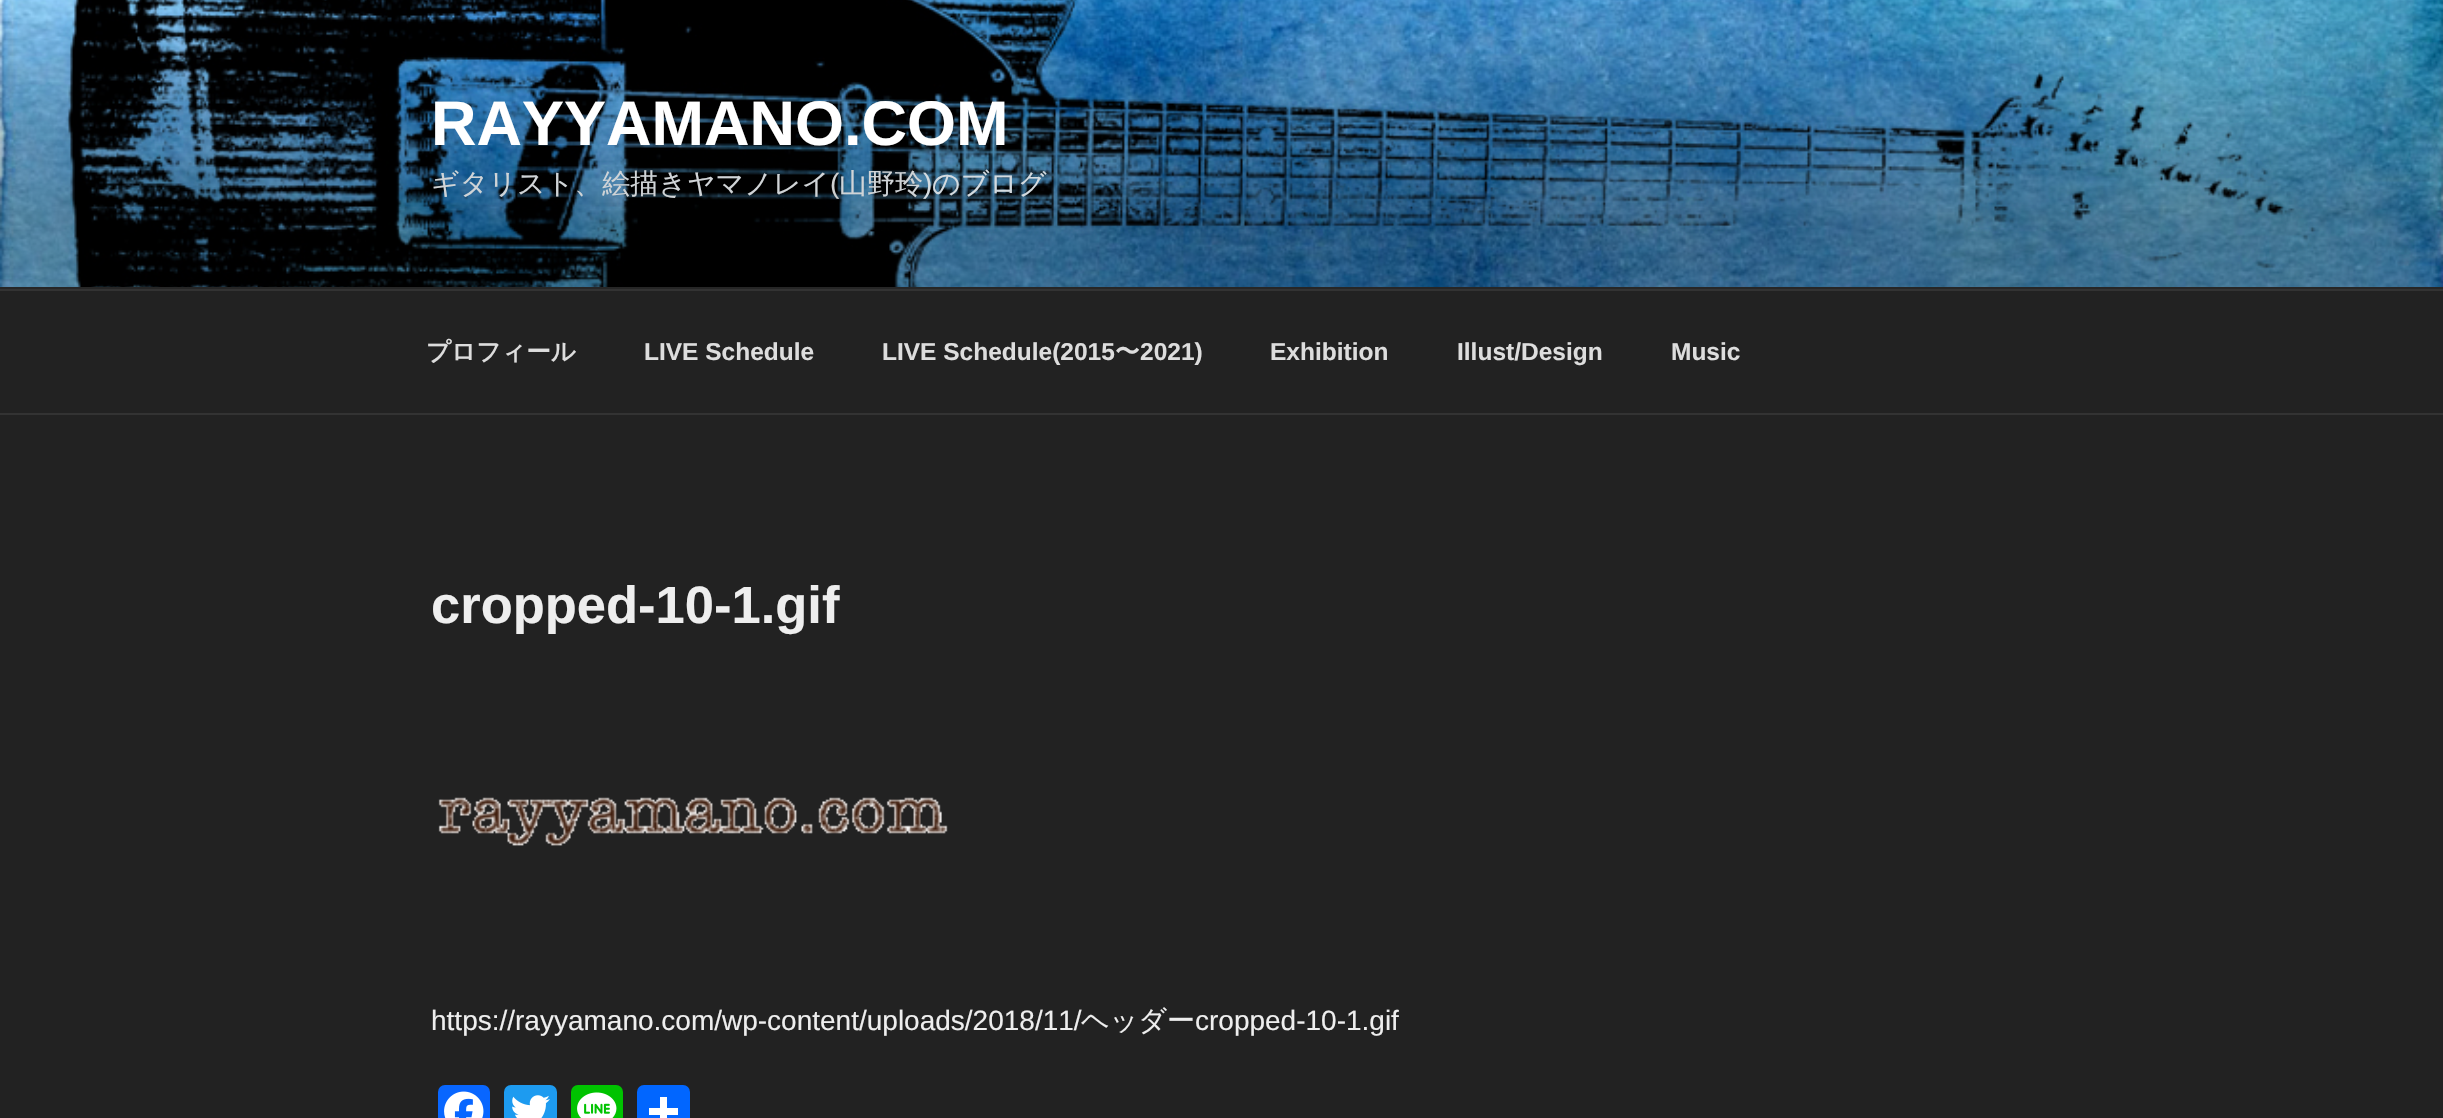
#include "include/core/SkBlurTypes.h"
#include "include/core/SkCanvas.h"
#include "include/core/SkData.h"
#include "include/core/SkFont.h"
#include "include/core/SkFontMgr.h"
#include "include/core/SkImage.h"
#include "include/core/SkMaskFilter.h"
#include "include/core/SkPaint.h"
#include "include/core/SkPathBuilder.h"
#include "include/core/SkTextBlob.h"
#include "include/effects/SkDashPathEffect.h"
#include "include/effects/SkGradientShader.h"
#include "include/utils/SkParsePath.h"

extern sk_sp<SkFontMgr> fontMgr;

void draw(SkCanvas* canvas) {
  SkPaint p;
  p.setAntiAlias(true);
  canvas->clear(SkColorSetRGB(34, 34, 34));
  p.setColor(SkColorSetRGB(38, 38, 38));
  canvas->drawRect(SkRect::MakeLTRB(0, 287, 2443, 289), p);
  canvas->drawImageRect(SkImages::DeferredFromEncodedData(SkData::MakeFromFileName("images/1.png")), SkRect::MakeLTRB(0, 0, 2443, 287), SkSamplingOptions());
  p.setColor(SkColorSetRGB(51, 51, 51));
  canvas->drawRect(SkRect::MakeLTRB(0, 289, 2443, 291), p);
  canvas->drawRect(SkRect::MakeLTRB(0, 413, 2443, 415), p);
  canvas->drawImageRect(SkImages::DeferredFromEncodedData(SkData::MakeFromFileName("images/2.png")), SkRect::MakeLTRB(438, 797, 948, 846), SkSamplingOptions());
  p.setColor(SkColorSetRGB(8, 102, 255));
  canvas->drawRoundRect(SkRect::MakeLTRB(438, 1085, 490, 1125), 7, 7, p);
  canvas->drawImageRect(SkImages::DeferredFromEncodedData(SkData::MakeFromFileName("images/3.png")), SkRect::MakeLTRB(444, 1091, 484, 1118), SkSamplingOptions());
  p.setColor(SkColorSetRGB(29, 155, 240));
  canvas->drawRoundRect(SkRect::MakeLTRB(504, 1085, 557, 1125), 7, 7, p);
  canvas->drawImageRect(SkImages::DeferredFromEncodedData(SkData::MakeFromFileName("images/4.png")), SkRect::MakeLTRB(512, 1095, 550, 1118), SkSamplingOptions());
  p.setColor(SkColorSetRGB(0, 195, 0));
  canvas->drawRoundRect(SkRect::MakeLTRB(571, 1085, 623, 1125), 7, 7, p);
  canvas->drawImageRect(SkImages::DeferredFromEncodedData(SkData::MakeFromFileName("images/5.png")), SkRect::MakeLTRB(577, 1092, 617, 1118), SkSamplingOptions());
  p.setColor(SkColorSetRGB(1, 102, 255));
  canvas->drawRoundRect(SkRect::MakeLTRB(637, 1085, 690, 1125), 7, 7, p);
  p.setColor(SK_ColorWHITE);
  canvas->drawRect(SkRect::MakeLTRB(660, 1097, 667, 1118), p);
  canvas->drawRect(SkRect::MakeLTRB(649, 1108, 678, 1115), p);
  SkFont font1(fontMgr->matchFamilyStyle("Liberation Sans", SkFontStyle::Bold()), 63);
  font1.setSubpixel(true);
  canvas->drawString("RAYYAMANO.COM", 431, 145, font1, p);
  SkFont font2(fontMgr->matchFamilyStyle("WenQuanYi Zen Hei", SkFontStyle(500, SkFontStyle::kNormal_Width, SkFontStyle::kUpright_Slant)), 28);
  font2.setSubpixel(true);
  p.setColor(SkColorSetRGB(208, 212, 215));
  canvas->drawString("ギタリスト、絵描きヤマノレイ", 431, 193, font2, p);
  SkFont font3(fontMgr->matchFamilyStyle("Liberation Sans", SkFontStyle::Normal()), 28);
  font3.setSubpixel(true);
  p.setColor(SkColorSetRGB(205, 207, 208));
  canvas->drawString("(", 830, 193, font3, p);
  p.setColor(SkColorSetRGB(208, 212, 215));
  canvas->drawString("山野玲", 839, 193, font2, p);
  p.setColor(SkColorSetRGB(212, 219, 224));
  canvas->drawString(")", 923, 193, font3, p);
  canvas->drawString("のブログ", 932, 193, font2, p);
  SkFont font4(fontMgr->matchFamilyStyle("WenQuanYi Zen Hei", SkFontStyle::Bold()), 24.5f);
  font4.setSubpixel(true);
  p.setColor(SkColorSetRGB(221, 221, 221));
  canvas->drawString("プロフィール", 426, 360, font4, p);
  SkFont font5(fontMgr->matchFamilyStyle("Liberation Sans", SkFontStyle::Bold()), 24.5f);
  font5.setSubpixel(true);
  canvas->drawString("LIVE Schedule", 644, 360, font5, p);
  canvas->drawString("LIVE Schedule(2015", 882, 360, font5, p);
  canvas->drawString("〜", 1115, 360, font4, p);
  canvas->drawString("2021)", 1140, 360, font5, p);
  canvas->drawString("Exhibition", 1270, 360, font5, p);
  canvas->drawString("Illust/Design", 1457, 360, font5, p);
  canvas->drawString("Music", 1671, 360, font5, p);
  SkFont font6(fontMgr->matchFamilyStyle("Liberation Sans", SkFontStyle::Bold()), 52.5f);
  font6.setSubpixel(true);
  p.setColor(SkColorSetRGB(238, 238, 238));
  canvas->drawString("cropped-10-1.gif", 431, 623, font6, p);
  canvas->drawString("https://rayyamano.com/wp-content/uploads/2018/11/", 431, 1030, font3, p);
  canvas->drawString("ヘッダー", 1081, 1030, font2, p);
  canvas->drawString("cropped-10-1.gif", 1195, 1030, font3, p);
}
